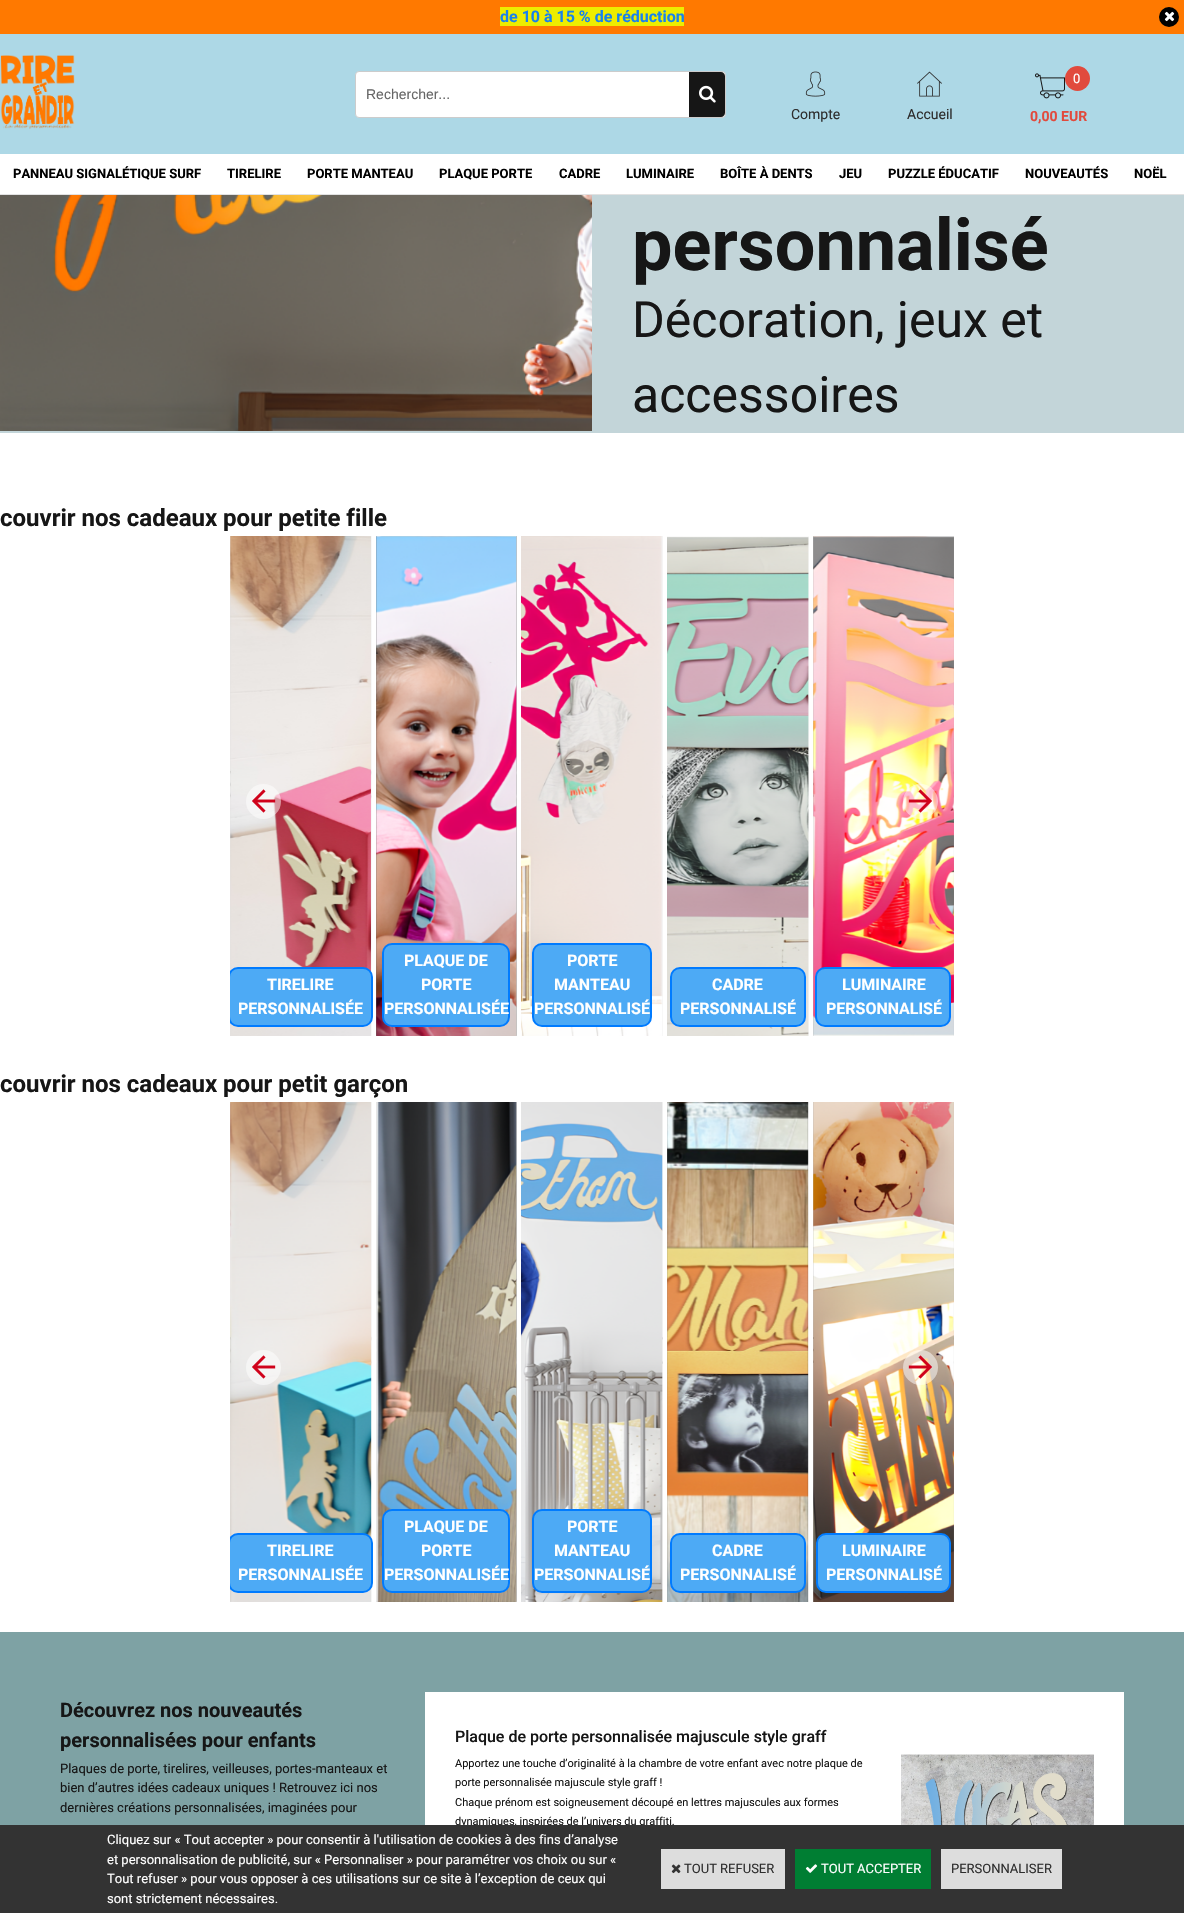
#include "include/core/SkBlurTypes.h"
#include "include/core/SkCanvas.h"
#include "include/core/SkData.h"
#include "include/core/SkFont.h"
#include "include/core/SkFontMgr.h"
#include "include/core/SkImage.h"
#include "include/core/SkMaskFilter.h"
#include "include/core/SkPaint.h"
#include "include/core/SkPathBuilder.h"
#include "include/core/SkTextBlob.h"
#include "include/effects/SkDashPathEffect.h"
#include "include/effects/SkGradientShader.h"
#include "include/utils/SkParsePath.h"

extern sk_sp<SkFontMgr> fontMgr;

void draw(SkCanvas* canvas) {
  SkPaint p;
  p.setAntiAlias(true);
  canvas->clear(SK_ColorWHITE);
  p.setColor(SkColorSetRGB(255, 121, 0));
  canvas->drawRect(SkRect::MakeLTRB(0, 0, 1184, 34), p);
  p.setColor(SkColorSetRGB(237, 237, 0));
  canvas->drawRect(SkRect::MakeLTRB(500, 7, 684, 26), p);
  p.setColor(SK_ColorBLACK);
  canvas->drawCircle(1169, 17, 10, p);
  canvas->drawImageRect(SkImages::DeferredFromEncodedData(SkData::MakeFromFileName("images/1.png")), SkRect::MakeLTRB(1164, 11, 1175, 22), SkSamplingOptions());
  p.setColor(SkColorSetRGB(173, 216, 230));
  canvas->drawRect(SkRect::MakeLTRB(0, 34, 1184, 154), p);
  p.setColor(SkColorSetRGB(226, 226, 226));
  canvas->drawRect(SkRect::MakeLTRB(0, 194, 1184, 195), p);
  canvas->drawImageRect(SkImages::DeferredFromEncodedData(SkData::MakeFromFileName("images/2.png")), SkRect::MakeLTRB(0, 55, 75, 129), SkSamplingOptions());
  p.setColor(SK_ColorWHITE);
  canvas->drawRoundRect(SkRect::MakeLTRB(355.5f, 71.5f, 725.5f, 117.5f), 3.5f, 3.5f, p);
  p.setStyle(SkPaint::kStroke_Style);
  p.setStrokeWidth(1);
  p.setColor(SkColorSetRGB(204, 204, 204));
  canvas->drawRoundRect(SkRect::MakeLTRB(355.5f, 71.5f, 725.5f, 117.5f), 3.5f, 3.5f, p);
  p.setStyle(SkPaint::kFill_Style);
  p.setColor(SkColorSetRGB(22, 22, 22));
  canvas->drawPath(SkPathBuilder().moveTo(689, 72).lineTo(721, 72).cubicTo(723, 72, 725, 74, 725, 76).lineTo(725, 113).cubicTo(725, 115, 723, 117, 721, 117).lineTo(689, 117).close().detach(), p);
  canvas->drawImageRect(SkImages::DeferredFromEncodedData(SkData::MakeFromFileName("images/3.png")), SkRect::MakeLTRB(699, 85, 716, 103), SkSamplingOptions());
  canvas->drawImageRect(SkImages::DeferredFromEncodedData(SkData::MakeFromFileName("images/4.png")), SkRect::MakeLTRB(805, 71, 826, 97), SkSamplingOptions());
  canvas->drawImageRect(SkImages::DeferredFromEncodedData(SkData::MakeFromFileName("images/5.png")), SkRect::MakeLTRB(917, 71, 942, 97), SkSamplingOptions());
  canvas->drawImageRect(SkImages::DeferredFromEncodedData(SkData::MakeFromFileName("images/6.png")), SkRect::MakeLTRB(1035, 73, 1065, 99), SkSamplingOptions());
  p.setColor(SkColorSetRGB(225, 74, 61));
  canvas->drawCircle(1077.5f, 78.5f, 12.5f, p);
  p.setColor(SkColorSetRGB(195, 213, 217));
  canvas->drawRect(SkRect::MakeLTRB(0, 431, 592, 433), p);
  canvas->drawImageRect(SkImages::DeferredFromEncodedData(SkData::MakeFromFileName("images/7.png")), SkRect::MakeLTRB(0, 195, 592, 431), SkSamplingOptions());
  canvas->drawRect(SkRect::MakeLTRB(592, 195, 1184, 433), p);
  canvas->drawImageRect(SkImages::DeferredFromEncodedData(SkData::MakeFromFileName("images/10.png")), SkRect::MakeLTRB(230, 536, 372, 1036), SkSamplingOptions());
  canvas->drawImageRect(SkImages::DeferredFromEncodedData(SkData::MakeFromFileName("images/11.png")), SkRect::MakeLTRB(230, 536, 371, 1036), SkSamplingOptions());
  p.setColor(SkColorSetARGB(128, 255, 255, 255));
  canvas->drawCircle(263.5f, 801.5f, 17.5f, p);
  canvas->drawImageRect(SkImages::DeferredFromEncodedData(SkData::MakeFromFileName("images/8.png")), SkRect::MakeLTRB(252, 789, 276, 813), SkSamplingOptions());
  canvas->drawImageRect(SkImages::DeferredFromEncodedData(SkData::MakeFromFileName("images/18.png")), SkRect::MakeLTRB(813, 536, 954, 1036), SkSamplingOptions());
  canvas->drawImageRect(SkImages::DeferredFromEncodedData(SkData::MakeFromFileName("images/19.png")), SkRect::MakeLTRB(813, 536, 954, 1036), SkSamplingOptions());
  canvas->drawCircle(920.5f, 801.5f, 17.5f, p);
  canvas->drawImageRect(SkImages::DeferredFromEncodedData(SkData::MakeFromFileName("images/9.png")), SkRect::MakeLTRB(908, 789, 932, 813), SkSamplingOptions());
  canvas->save();
  canvas->clipRect(SkRect::MakeLTRB(230, 536, 954, 1066));
  p.setColor(SkColorSetRGB(77, 170, 245));
  canvas->drawRoundRect(SkRect::MakeLTRB(229, 968, 372, 1026), 9, 9, p);
  p.setStyle(SkPaint::kStroke_Style);
  p.setStrokeWidth(2);
  p.setColor(SkColorSetRGB(0, 123, 255));
  canvas->drawRoundRect(SkRect::MakeLTRB(229, 968, 372, 1026), 9, 9, p);
  canvas->restore();
  canvas->drawImageRect(SkImages::DeferredFromEncodedData(SkData::MakeFromFileName("images/12.png")), SkRect::MakeLTRB(376, 536, 517, 1036), SkSamplingOptions());
  canvas->drawImageRect(SkImages::DeferredFromEncodedData(SkData::MakeFromFileName("images/13.png")), SkRect::MakeLTRB(376, 536, 517, 1036), SkSamplingOptions());
  p.setStyle(SkPaint::kFill_Style);
  p.setColor(SkColorSetRGB(77, 170, 245));
  canvas->drawRoundRect(SkRect::MakeLTRB(383, 944, 509, 1026), 9, 9, p);
  p.setStyle(SkPaint::kStroke_Style);
  p.setColor(SkColorSetRGB(0, 123, 255));
  canvas->drawRoundRect(SkRect::MakeLTRB(383, 944, 509, 1026), 9, 9, p);
  canvas->drawImageRect(SkImages::DeferredFromEncodedData(SkData::MakeFromFileName("images/14.png")), SkRect::MakeLTRB(662, 536, 663, 1036), SkSamplingOptions());
  canvas->drawImageRect(SkImages::DeferredFromEncodedData(SkData::MakeFromFileName("images/15.png")), SkRect::MakeLTRB(521, 536, 663, 1036), SkSamplingOptions());
  p.setStyle(SkPaint::kFill_Style);
  p.setColor(SkColorSetRGB(77, 170, 245));
  canvas->drawRoundRect(SkRect::MakeLTRB(533, 944, 651, 1026), 9, 9, p);
  p.setStyle(SkPaint::kStroke_Style);
  p.setColor(SkColorSetRGB(0, 123, 255));
  canvas->drawRoundRect(SkRect::MakeLTRB(533, 944, 651, 1026), 9, 9, p);
  canvas->drawImageRect(SkImages::DeferredFromEncodedData(SkData::MakeFromFileName("images/16.png")), SkRect::MakeLTRB(808, 536, 809, 1036), SkSamplingOptions());
  canvas->drawImageRect(SkImages::DeferredFromEncodedData(SkData::MakeFromFileName("images/17.png")), SkRect::MakeLTRB(667, 536, 809, 1036), SkSamplingOptions());
  p.setStyle(SkPaint::kFill_Style);
  p.setColor(SkColorSetRGB(77, 170, 245));
  canvas->drawRoundRect(SkRect::MakeLTRB(671, 968, 805, 1026), 9, 9, p);
  p.setStyle(SkPaint::kStroke_Style);
  p.setColor(SkColorSetRGB(0, 123, 255));
  canvas->drawRoundRect(SkRect::MakeLTRB(671, 968, 805, 1026), 9, 9, p);
  p.setStyle(SkPaint::kFill_Style);
  p.setColor(SkColorSetRGB(77, 170, 245));
  canvas->drawRoundRect(SkRect::MakeLTRB(816, 968, 950, 1026), 9, 9, p);
  p.setStyle(SkPaint::kStroke_Style);
  p.setColor(SkColorSetRGB(0, 123, 255));
  canvas->drawRoundRect(SkRect::MakeLTRB(816, 968, 950, 1026), 9, 9, p);
  canvas->drawImageRect(SkImages::DeferredFromEncodedData(SkData::MakeFromFileName("images/10.png")), SkRect::MakeLTRB(230, 1102, 372, 1602), SkSamplingOptions());
  canvas->drawImageRect(SkImages::DeferredFromEncodedData(SkData::MakeFromFileName("images/22.png")), SkRect::MakeLTRB(230, 1102, 372, 1602), SkSamplingOptions());
  p.setStyle(SkPaint::kFill_Style);
  p.setColor(SkColorSetARGB(128, 255, 255, 255));
  canvas->drawCircle(263.5f, 1367.5f, 17.5f, p);
  canvas->drawImageRect(SkImages::DeferredFromEncodedData(SkData::MakeFromFileName("images/20.png")), SkRect::MakeLTRB(252, 1355, 276, 1379), SkSamplingOptions());
  canvas->drawImageRect(SkImages::DeferredFromEncodedData(SkData::MakeFromFileName("images/18.png")), SkRect::MakeLTRB(813, 1102, 954, 1602), SkSamplingOptions());
  canvas->drawImageRect(SkImages::DeferredFromEncodedData(SkData::MakeFromFileName("images/27.png")), SkRect::MakeLTRB(813, 1102, 954, 1602), SkSamplingOptions());
  canvas->drawCircle(920.5f, 1367.5f, 17.5f, p);
  canvas->drawImageRect(SkImages::DeferredFromEncodedData(SkData::MakeFromFileName("images/21.png")), SkRect::MakeLTRB(908, 1355, 932, 1379), SkSamplingOptions());
  canvas->save();
  canvas->clipRect(SkRect::MakeLTRB(230, 1102, 954, 1632));
  p.setColor(SkColorSetRGB(77, 170, 245));
  canvas->drawRoundRect(SkRect::MakeLTRB(229, 1534, 372, 1592), 9, 9, p);
  p.setStyle(SkPaint::kStroke_Style);
  p.setColor(SkColorSetRGB(0, 123, 255));
  canvas->drawRoundRect(SkRect::MakeLTRB(229, 1534, 372, 1592), 9, 9, p);
  canvas->restore();
  canvas->drawImageRect(SkImages::DeferredFromEncodedData(SkData::MakeFromFileName("images/12.png")), SkRect::MakeLTRB(376, 1102, 517, 1602), SkSamplingOptions());
  canvas->drawImageRect(SkImages::DeferredFromEncodedData(SkData::MakeFromFileName("images/23.png")), SkRect::MakeLTRB(376, 1102, 517, 1602), SkSamplingOptions());
  p.setStyle(SkPaint::kFill_Style);
  p.setColor(SkColorSetRGB(77, 170, 245));
  canvas->drawRoundRect(SkRect::MakeLTRB(383, 1510, 509, 1592), 9, 9, p);
  p.setStyle(SkPaint::kStroke_Style);
  p.setColor(SkColorSetRGB(0, 123, 255));
  canvas->drawRoundRect(SkRect::MakeLTRB(383, 1510, 509, 1592), 9, 9, p);
  canvas->drawImageRect(SkImages::DeferredFromEncodedData(SkData::MakeFromFileName("images/14.png")), SkRect::MakeLTRB(662, 1102, 663, 1602), SkSamplingOptions());
  canvas->drawImageRect(SkImages::DeferredFromEncodedData(SkData::MakeFromFileName("images/24.png")), SkRect::MakeLTRB(521, 1102, 663, 1602), SkSamplingOptions());
  p.setStyle(SkPaint::kFill_Style);
  p.setColor(SkColorSetRGB(77, 170, 245));
  canvas->drawRoundRect(SkRect::MakeLTRB(533, 1510, 651, 1592), 9, 9, p);
  p.setStyle(SkPaint::kStroke_Style);
  p.setColor(SkColorSetRGB(0, 123, 255));
  canvas->drawRoundRect(SkRect::MakeLTRB(533, 1510, 651, 1592), 9, 9, p);
  canvas->drawImageRect(SkImages::DeferredFromEncodedData(SkData::MakeFromFileName("images/25.png")), SkRect::MakeLTRB(667, 1102, 809, 1602), SkSamplingOptions());
  canvas->drawImageRect(SkImages::DeferredFromEncodedData(SkData::MakeFromFileName("images/26.png")), SkRect::MakeLTRB(667, 1102, 809, 1602), SkSamplingOptions());
  p.setStyle(SkPaint::kFill_Style);
  p.setColor(SkColorSetRGB(77, 170, 245));
  canvas->drawRoundRect(SkRect::MakeLTRB(671, 1534, 805, 1592), 9, 9, p);
  p.setStyle(SkPaint::kStroke_Style);
  p.setColor(SkColorSetRGB(0, 123, 255));
  canvas->drawRoundRect(SkRect::MakeLTRB(671, 1534, 805, 1592), 9, 9, p);
  p.setStyle(SkPaint::kFill_Style);
  p.setColor(SkColorSetRGB(77, 170, 245));
  canvas->drawRoundRect(SkRect::MakeLTRB(817, 1534, 950, 1592), 9, 9, p);
  p.setStyle(SkPaint::kStroke_Style);
  p.setColor(SkColorSetRGB(0, 123, 255));
  canvas->drawRoundRect(SkRect::MakeLTRB(817, 1534, 950, 1592), 9, 9, p);
  p.setStyle(SkPaint::kFill_Style);
  p.setColor(SkColorSetRGB(126, 162, 164));
  canvas->drawRect(SkRect::MakeLTRB(0, 1632, 1184, 1825), p);
  p.setColor(SK_ColorWHITE);
  canvas->drawRect(SkRect::MakeLTRB(425, 1692, 1124, 1825), p);
  canvas->drawImageRect(SkImages::DeferredFromEncodedData(SkData::MakeFromFileName("images/28.png")), SkRect::MakeLTRB(901, 1754, 1094, 1825), SkSamplingOptions());
  SkFont font1(fontMgr->matchFamilyStyle("Roboto", SkFontStyle::Bold()), 16);
  font1.setSubpixel(true);
  p.setColor(SkColorSetRGB(24, 130, 237));
  canvas->drawString("de 10 à 15 % de réduction", 500, 22, font1, p);
  SkFont font2(fontMgr->matchFamilyStyle("Liberation Sans", SkFontStyle::Normal()), 14);
  font2.setSubpixel(true);
  p.setColor(SkColorSetRGB(102, 102, 102));
  canvas->drawString("Rechercher...", 366, 99, font2, p);
  SkFont font3(fontMgr->matchFamilyStyle("Roboto", SkFontStyle::Normal()), 14);
  font3.setSubpixel(true);
  p.setColor(SkColorSetRGB(46, 46, 46));
  canvas->drawString("Compte", 791, 119, font3, p);
  canvas->drawString("Accueil", 907, 119, font3, p);
  SkFont font4(fontMgr->matchFamilyStyle("Roboto", SkFontStyle::Normal()), 13);
  font4.setSubpixel(true);
  p.setColor(SK_ColorWHITE);
  canvas->drawString("0", 1073, 83, font4, p);
  SkFont font5(fontMgr->matchFamilyStyle("Roboto", SkFontStyle::Bold()), 14);
  font5.setSubpixel(true);
  p.setColor(SkColorSetRGB(225, 74, 61));
  canvas->drawString("0,00 EUR", 1030, 121, font5, p);
  SkFont font6(fontMgr->matchFamilyStyle("Roboto", SkFontStyle::Bold()), 13);
  font6.setSubpixel(true);
  p.setColor(SK_ColorBLACK);
  canvas->drawString("PANNEAU SIGNALÉTIQUE SURF", 13, 178, font6, p);
  canvas->drawString("TIRELIRE", 227, 178, font6, p);
  canvas->drawString("PORTE MANTEAU", 307, 178, font6, p);
  canvas->drawString("PLAQUE PORTE", 439, 178, font6, p);
  canvas->drawString("CADRE", 559, 178, font6, p);
  canvas->drawString("LUMINAIRE", 626, 178, font6, p);
  canvas->drawString("BOÎTE À DENTS", 720, 178, font6, p);
  canvas->drawString("JEU", 839, 178, font6, p);
  canvas->drawString("PUZZLE ÉDUCATIF", 888, 178, font6, p);
  canvas->drawString("NOUVEAUTÉS", 1025, 178, font6, p);
  canvas->drawString("NOËL", 1134, 178, font6, p);
  SkFont font7(fontMgr->matchFamilyStyle("Roboto", SkFontStyle::Bold()), 72);
  font7.setSubpixel(true);
  p.setColor(SkColorSetRGB(22, 22, 22));
  canvas->drawString("personnalisé", 632, 270, font7, p);
  SkFont font8(fontMgr->matchFamilyStyle("Roboto", SkFontStyle::Normal()), 50);
  font8.setSubpixel(true);
  canvas->drawString("Décoration, jeux et", 632, 337, font8, p);
  canvas->drawString("accessoires", 632, 412, font8, p);
  SkFont font9(fontMgr->matchFamilyStyle("Roboto", SkFontStyle::Bold()), 24);
  font9.setSubpixel(true);
  canvas->drawString("couvrir nos cadeaux pour petite fille", 0, 526, font9, p);
  p.setColor(SK_ColorWHITE);
  canvas->drawString("TIRELIRE", 267, 990, font1, p);
  canvas->drawString("PERSONNALISÉE", 238, 1014, font1, p);
  canvas->drawString("PLAQUE DE", 404, 966, font1, p);
  canvas->drawString("PORTE", 421, 990, font1, p);
  canvas->drawString("PERSONNALISÉE", 384, 1014, font1, p);
  canvas->drawString("PORTE", 567, 966, font1, p);
  canvas->drawString("MANTEAU", 554, 990, font1, p);
  canvas->drawString("PERSONNALISÉ", 534, 1014, font1, p);
  canvas->drawString("CADRE", 712, 990, font1, p);
  canvas->drawString("PERSONNALISÉ", 680, 1014, font1, p);
  canvas->drawString("LUMINAIRE", 842, 990, font1, p);
  canvas->drawString("PERSONNALISÉ", 826, 1014, font1, p);
  p.setColor(SkColorSetRGB(22, 22, 22));
  canvas->drawString("couvrir nos cadeaux pour petit garçon", 0, 1092, font9, p);
  p.setColor(SK_ColorWHITE);
  canvas->drawString("TIRELIRE", 267, 1556, font1, p);
  canvas->drawString("PERSONNALISÉE", 238, 1580, font1, p);
  canvas->drawString("PLAQUE DE", 404, 1532, font1, p);
  canvas->drawString("PORTE", 421, 1556, font1, p);
  canvas->drawString("PERSONNALISÉE", 384, 1580, font1, p);
  canvas->drawString("PORTE", 567, 1532, font1, p);
  canvas->drawString("MANTEAU", 554, 1556, font1, p);
  canvas->drawString("PERSONNALISÉ", 534, 1580, font1, p);
  canvas->drawString("CADRE", 712, 1556, font1, p);
  canvas->drawString("PERSONNALISÉ", 680, 1580, font1, p);
  canvas->drawString("LUMINAIRE", 842, 1556, font1, p);
  canvas->drawString("PERSONNALISÉ", 826, 1580, font1, p);
  SkFont font10(fontMgr->matchFamilyStyle("Roboto", SkFontStyle::Bold()), 20);
  font10.setSubpixel(true);
  p.setColor(SkColorSetRGB(22, 22, 22));
  canvas->drawString("Découvrez nos nouveautés", 60, 1717, font10, p);
  canvas->drawString("personnalisées pour enfants", 60, 1747, font10, p);
  canvas->drawString("Plaques de porte, tirelires, veilleuses, portes-manteaux et", 60, 1773, font4, p);
  canvas->drawString("bien d’autres idées cadeaux uniques ! Retrouvez ici nos", 60, 1792, font4, p);
  canvas->drawString("dernières créations personnalisées, imaginées pour", 60, 1812, font4, p);
  SkFont font11(fontMgr->matchFamilyStyle("Roboto", SkFontStyle(500, SkFontStyle::kNormal_Width, SkFontStyle::kUpright_Slant)), 16);
  font11.setSubpixel(true);
  canvas->drawString("Plaque de porte personnalisée majuscule style graff", 455, 1742, font11, p);
  SkFont font12(fontMgr->matchFamilyStyle("Roboto", SkFontStyle::Normal()), 11);
  font12.setSubpixel(true);
  canvas->drawString("Apportez une touche d’originalité à la chambre de votre enfant avec notre plaque de", 455, 1767, font12, p);
  canvas->drawString("porte personnalisée majuscule style graff !", 455, 1786, font12, p);
  canvas->drawString("Chaque prénom est soigneusement découpé en lettres majuscules aux formes", 455, 1806, font12, p);
  canvas->drawString("dynamiques, inspirées de l’univers du graffiti.", 455, 1825, font12, p);
  p.setColor(SkColorSetRGB(51, 51, 51));
  canvas->drawRect(SkRect::MakeLTRB(0, 1825, 1184, 1913), p);
  p.setColor(SK_ColorWHITE);
  canvas->drawString("Cliquez sur « Tout accepter » pour consentir à l'utilisation de cookies à des fins d’analyse", 107, 1844, font4, p);
  canvas->drawString("et personnalisation de publicité, sur « Personnaliser » pour paramétrer vos choix ou sur «", 107, 1864, font4, p);
  canvas->drawString("Tout refuser » pour vous opposer à ces utilisations sur ce site à l’exception de ceux qui", 107, 1883, font4, p);
  canvas->drawString("sont strictement nécessaires.", 107, 1903, font4, p);
  p.setColor(SkColorSetRGB(221, 221, 221));
  canvas->drawRect(SkRect::MakeLTRB(661, 1849, 785, 1889), p);
  canvas->drawImageRect(SkImages::DeferredFromEncodedData(SkData::MakeFromFileName("images/29.png")), SkRect::MakeLTRB(671, 1864, 681, 1874), SkSamplingOptions());
  p.setColor(SkColorSetRGB(46, 46, 46));
  canvas->drawString("TOUT REFUSER", 684, 1873, font4, p);
  p.setColor(SkColorSetRGB(0, 126, 51));
  canvas->drawRect(SkRect::MakeLTRB(795, 1849, 931, 1889), p);
  canvas->drawImageRect(SkImages::DeferredFromEncodedData(SkData::MakeFromFileName("images/30.png")), SkRect::MakeLTRB(805, 1864, 818, 1873), SkSamplingOptions());
  p.setColor(SK_ColorWHITE);
  canvas->drawString("TOUT ACCEPTER", 821, 1873, font4, p);
  p.setColor(SkColorSetRGB(221, 221, 221));
  canvas->drawRect(SkRect::MakeLTRB(941, 1849, 1062, 1889), p);
  p.setColor(SkColorSetRGB(46, 46, 46));
  canvas->drawString("PERSONNALISER", 951, 1873, font4, p);
}
